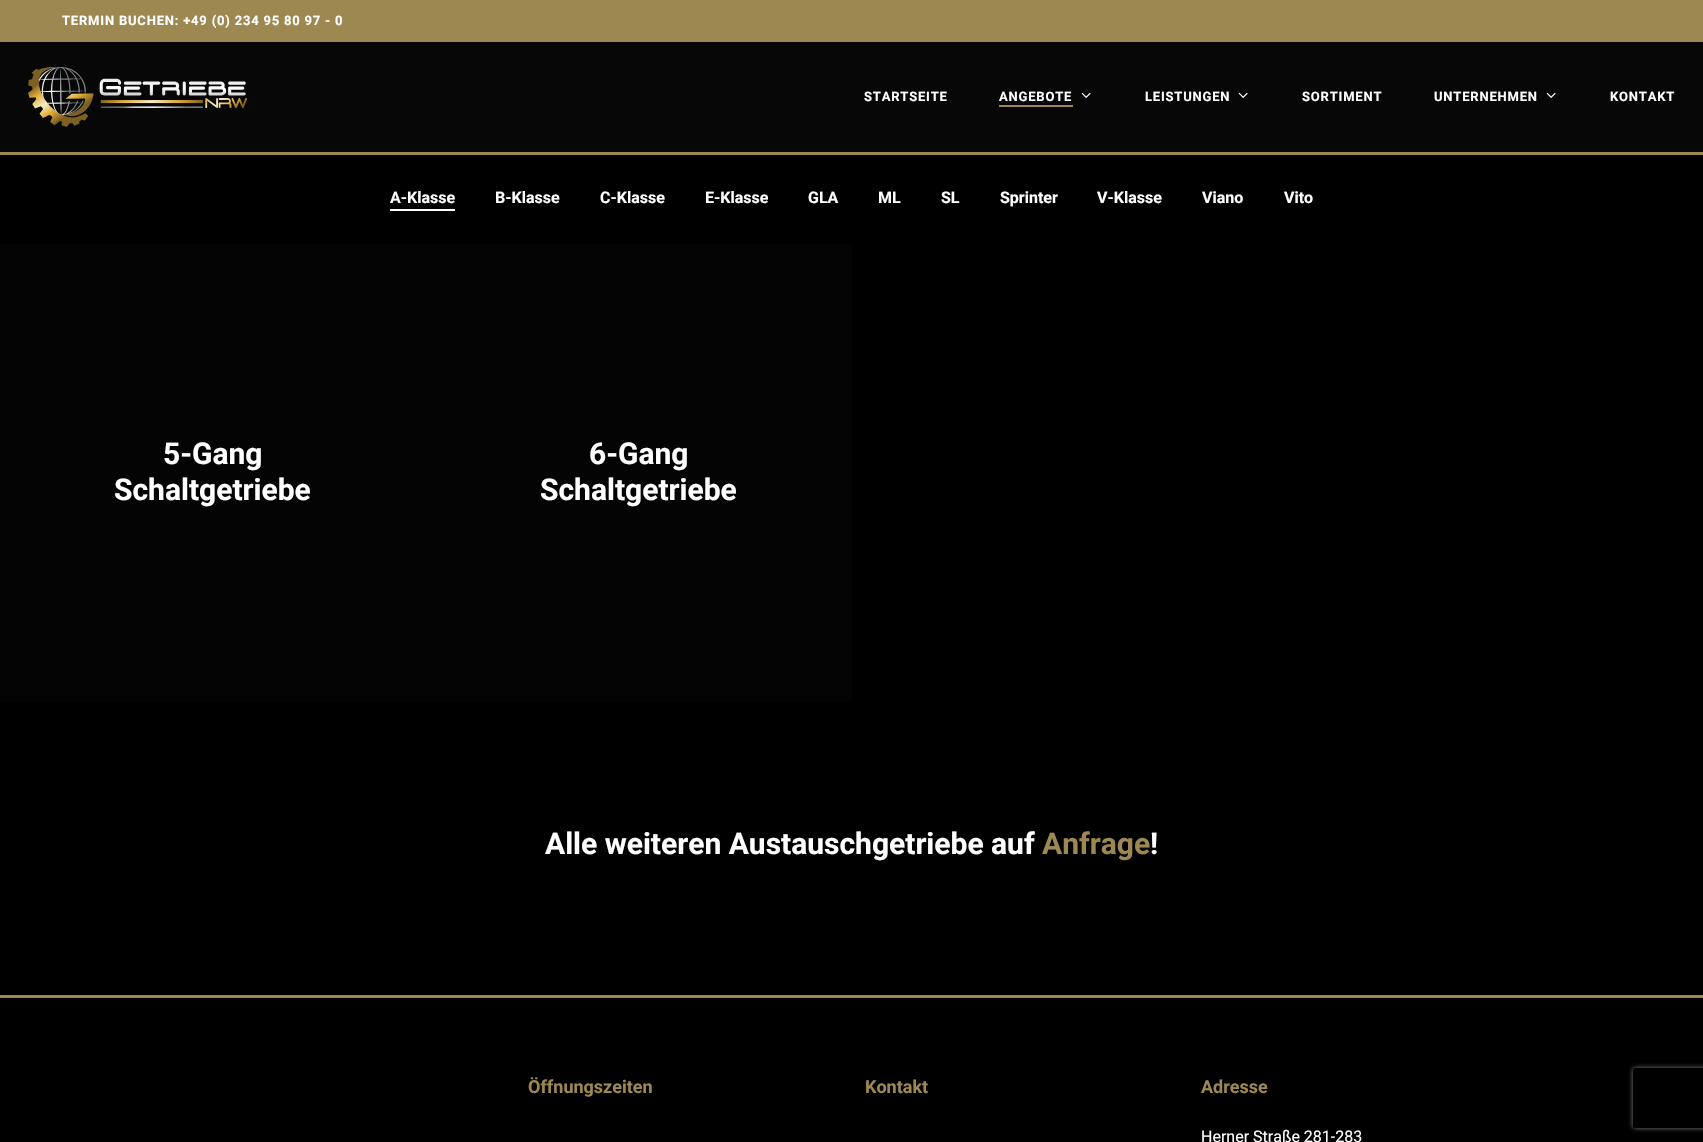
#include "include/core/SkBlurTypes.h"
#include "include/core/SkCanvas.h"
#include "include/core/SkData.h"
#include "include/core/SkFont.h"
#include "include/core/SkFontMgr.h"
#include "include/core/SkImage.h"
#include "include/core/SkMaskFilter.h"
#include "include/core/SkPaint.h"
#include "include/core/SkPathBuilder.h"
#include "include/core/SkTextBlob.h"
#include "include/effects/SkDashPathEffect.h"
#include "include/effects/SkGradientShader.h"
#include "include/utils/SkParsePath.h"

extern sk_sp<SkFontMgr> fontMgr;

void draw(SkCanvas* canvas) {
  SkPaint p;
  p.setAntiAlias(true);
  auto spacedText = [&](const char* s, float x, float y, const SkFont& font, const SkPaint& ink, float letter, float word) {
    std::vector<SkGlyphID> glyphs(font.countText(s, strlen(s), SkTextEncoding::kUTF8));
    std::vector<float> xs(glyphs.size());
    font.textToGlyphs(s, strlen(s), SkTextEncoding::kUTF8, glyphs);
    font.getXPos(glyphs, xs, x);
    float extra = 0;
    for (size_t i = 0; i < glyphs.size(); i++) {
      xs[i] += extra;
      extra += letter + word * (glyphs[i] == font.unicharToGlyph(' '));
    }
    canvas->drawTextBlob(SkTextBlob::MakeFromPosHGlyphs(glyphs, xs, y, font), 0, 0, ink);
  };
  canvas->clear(SK_ColorBLACK);
  p.setColor(SkColorSetRGB(7, 7, 7));
  canvas->drawRect(SkRect::MakeLTRB(0, 42, 1703, 152), p);
  p.setColor(SkColorSetRGB(158, 136, 81));
  canvas->drawRect(SkRect::MakeLTRB(0, 0, 1703, 42), p);
  canvas->drawRect(SkRect::MakeLTRB(0, 152, 1703, 155), p);
  canvas->drawImageRect(SkImages::DeferredFromEncodedData(SkData::MakeFromFileName("images/1.png")), SkRect::MakeLTRB(28, 67, 247, 127), SkSamplingOptions());
  canvas->drawRect(SkRect::MakeLTRB(999, 105, 1073, 107), p);
  canvas->drawImageRect(SkImages::DeferredFromEncodedData(SkData::MakeFromFileName("images/2.png")), SkRect::MakeLTRB(1081, 92, 1091, 98), SkSamplingOptions());
  canvas->drawImageRect(SkImages::DeferredFromEncodedData(SkData::MakeFromFileName("images/2.png")), SkRect::MakeLTRB(1238, 92, 1248, 98), SkSamplingOptions());
  canvas->drawImageRect(SkImages::DeferredFromEncodedData(SkData::MakeFromFileName("images/2.png")), SkRect::MakeLTRB(1546, 92, 1556, 98), SkSamplingOptions());
  p.setColor(SK_ColorWHITE);
  canvas->drawRect(SkRect::MakeLTRB(390, 209, 455, 211), p);
  p.setColor(SkColorSetRGB(4, 4, 4));
  canvas->drawRect(SkRect::MakeLTRB(0, 244, 852, 701), p);
  p.setColor(SkColorSetRGB(158, 136, 81));
  canvas->drawRect(SkRect::MakeLTRB(0, 995, 1703, 998), p);
  canvas->save();
  canvas->clipPath(SkPathBuilder(SkPathFillType::kEvenOdd).moveTo(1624, 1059).lineTo(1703, 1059).lineTo(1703, 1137).lineTo(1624, 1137).close().moveTo(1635, 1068).lineTo(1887, 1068).cubicTo(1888, 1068, 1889, 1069, 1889, 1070).lineTo(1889, 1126).cubicTo(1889, 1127, 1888, 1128, 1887, 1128).lineTo(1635, 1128).cubicTo(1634, 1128, 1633, 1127, 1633, 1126).lineTo(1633, 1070).cubicTo(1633, 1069, 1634, 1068, 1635, 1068).close().detach(), true);
  p.setColor(SkColorSetRGB(128, 128, 128));
  p.setMaskFilter(SkMaskFilter::MakeBlur(kNormal_SkBlurStyle, 2.5f));
  canvas->drawRoundRect(SkRect::MakeLTRB(1633, 1068, 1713, 1128), 2, 2, p);
  p.setMaskFilter(nullptr);
  canvas->restore();
  SkFont font1(fontMgr->matchFamilyStyle("Roboto", SkFontStyle::Bold()), 13);
  font1.setSubpixel(true);
  p.setColor(SK_ColorWHITE);
  spacedText("TERMIN BUCHEN: +49 (0) 234 95 80 97 - 0", 62, 25, font1, p, 0.8f, 0);
  spacedText("STARTSEITE", 864, 101, font1, p, 0.8f, 0);
  spacedText("ANGEBOTE", 999, 101, font1, p, 0.8f, 0);
  spacedText("LEISTUNGEN", 1145, 101, font1, p, 0.8f, 0);
  spacedText("SORTIMENT", 1302, 101, font1, p, 0.8f, 0);
  spacedText("UNTERNEHMEN", 1434, 101, font1, p, 0.8f, 0);
  spacedText("KONTAKT", 1610, 101, font1, p, 0.8f, 0);
  SkFont font2(fontMgr->matchFamilyStyle("Roboto", SkFontStyle::Bold()), 16);
  font2.setSubpixel(true);
  canvas->drawString("A-Klasse", 390, 203, font2, p);
  canvas->drawString("B-Klasse", 495, 203, font2, p);
  canvas->drawString("C-Klasse", 600, 203, font2, p);
  canvas->drawString("E-Klasse", 705, 203, font2, p);
  canvas->drawString("GLA", 808, 203, font2, p);
  canvas->drawString("ML", 878, 203, font2, p);
  canvas->drawString("SL", 941, 203, font2, p);
  canvas->drawString("Sprinter", 1000, 203, font2, p);
  canvas->drawString("V-Klasse", 1097, 203, font2, p);
  canvas->drawString("Viano", 1202, 203, font2, p);
  canvas->drawString("Vito", 1284, 203, font2, p);
  SkFont font3(fontMgr->matchFamilyStyle("Roboto", SkFontStyle::Bold()), 30);
  font3.setSubpixel(true);
  canvas->drawString("5-Gang", 163, 464, font3, p);
  canvas->drawString("Schaltgetriebe", 114, 500, font3, p);
  canvas->drawString("6-Gang", 589, 464, font3, p);
  canvas->drawString("Schaltgetriebe", 540, 500, font3, p);
  canvas->drawString("Alle weiteren Austauschgetriebe auf", 545, 854, font3, p);
  p.setColor(SkColorSetRGB(158, 136, 81));
  canvas->drawString("Anfrage", 1042, 854, font3, p);
  p.setColor(SK_ColorWHITE);
  canvas->drawString("!", 1150, 854, font3, p);
  SkFont font4(fontMgr->matchFamilyStyle("Roboto", SkFontStyle::Bold()), 18);
  font4.setSubpixel(true);
  p.setColor(SkColorSetRGB(158, 136, 81));
  canvas->drawString("Öffnungszeiten", 528, 1093, font4, p);
  canvas->drawString("Kontakt", 865, 1093, font4, p);
  canvas->drawString("Adresse", 1201, 1093, font4, p);
  SkFont font5(fontMgr->matchFamilyStyle("Roboto", SkFontStyle::Normal()), 16);
  font5.setSubpixel(true);
  p.setColor(SK_ColorWHITE);
  canvas->drawString("Herner Straße 281-283", 1201, 1142, font5, p);
}
